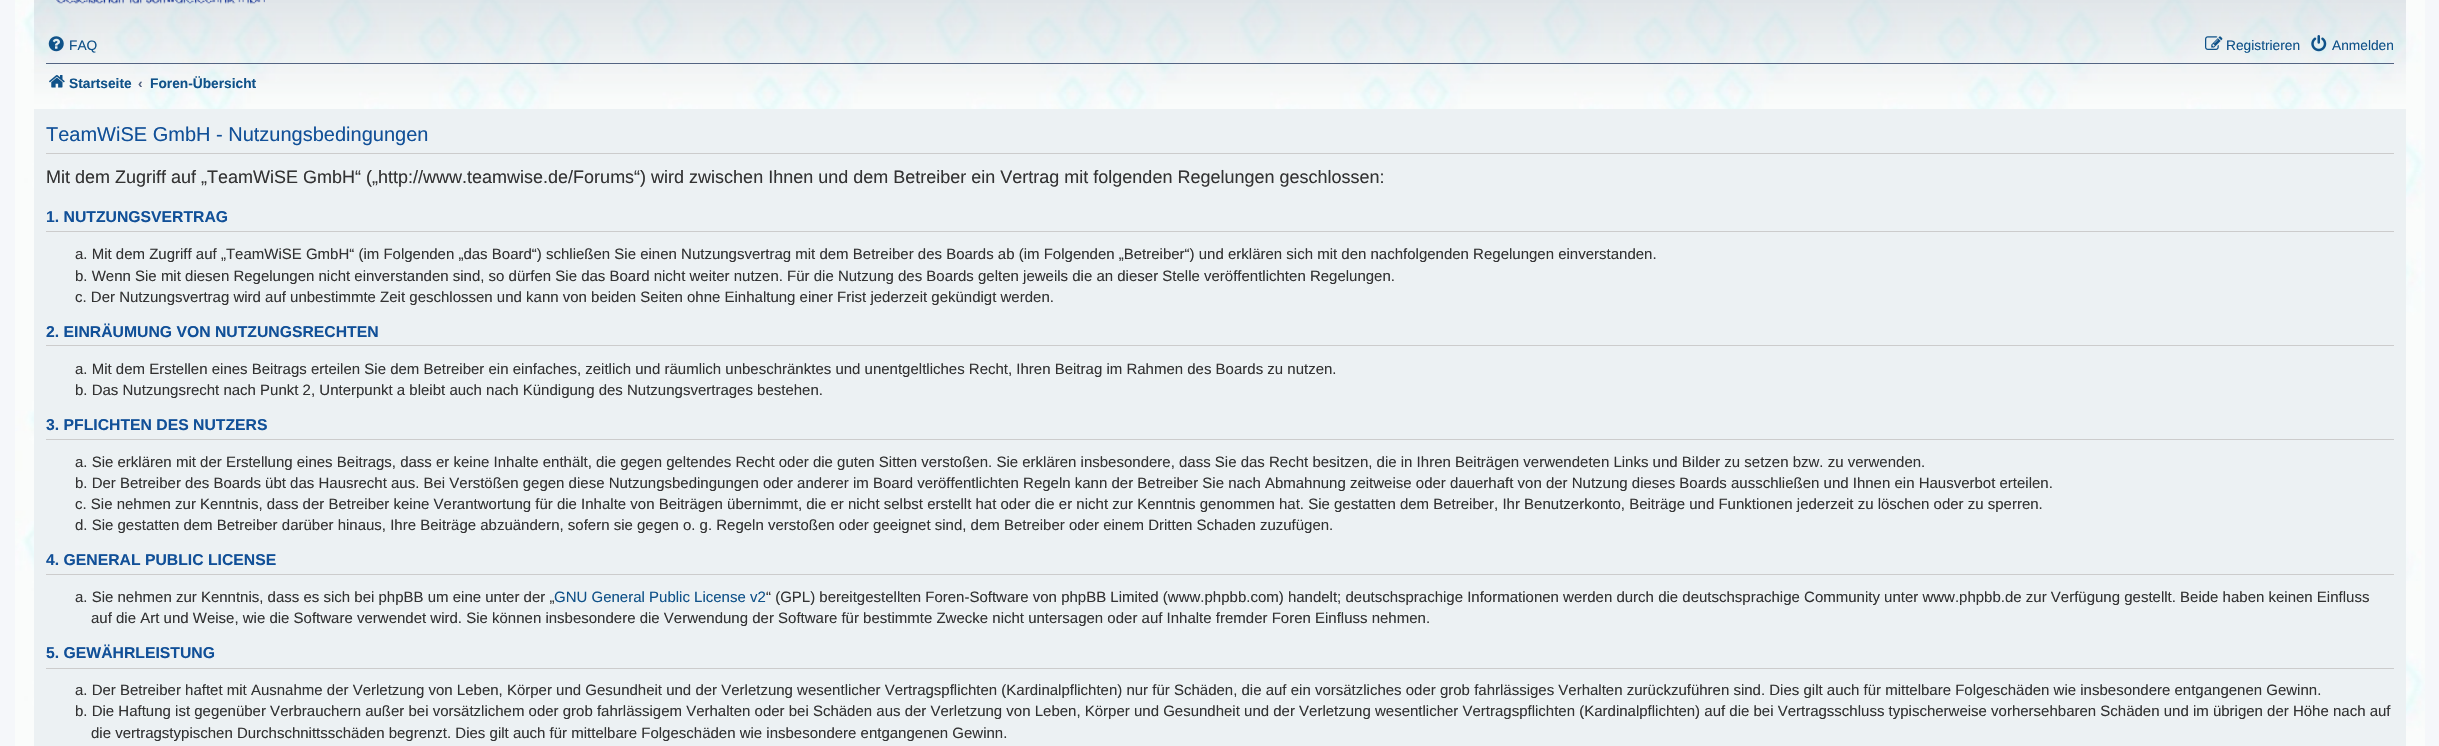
#include "include/core/SkBlurTypes.h"
#include "include/core/SkCanvas.h"
#include "include/core/SkData.h"
#include "include/core/SkFont.h"
#include "include/core/SkFontMgr.h"
#include "include/core/SkImage.h"
#include "include/core/SkMaskFilter.h"
#include "include/core/SkPaint.h"
#include "include/core/SkPathBuilder.h"
#include "include/core/SkTextBlob.h"
#include "include/effects/SkDashPathEffect.h"
#include "include/effects/SkGradientShader.h"
#include "include/utils/SkParsePath.h"

extern sk_sp<SkFontMgr> fontMgr;

void draw(SkCanvas* canvas) {
  SkPaint p;
  p.setAntiAlias(true);
  canvas->clear(SkColorSetRGB(245, 247, 250));
  canvas->drawImageRect(SkImages::DeferredFromEncodedData(SkData::MakeFromFileName("images/1.png")), SkRect::MakeLTRB(15, 0, 2425, 746), SkSamplingOptions());
  canvas->drawImageRect(SkImages::DeferredFromEncodedData(SkData::MakeFromFileName("images/2.png")), SkRect::MakeLTRB(56, 0, 265, 4), SkSamplingOptions());
  canvas->drawImageRect(SkImages::DeferredFromEncodedData(SkData::MakeFromFileName("images/3.png")), SkRect::MakeLTRB(48, 36, 64, 52), SkSamplingOptions());
  canvas->drawImageRect(SkImages::DeferredFromEncodedData(SkData::MakeFromFileName("images/4.png")), SkRect::MakeLTRB(2205, 36, 2223, 50), SkSamplingOptions());
  canvas->drawImageRect(SkImages::DeferredFromEncodedData(SkData::MakeFromFileName("images/5.png")), SkRect::MakeLTRB(2311, 35, 2327, 52), SkSamplingOptions());
  p.setColor(SkColorSetRGB(83, 100, 130));
  canvas->drawRect(SkRect::MakeLTRB(46, 63, 2394, 64), p);
  canvas->drawImageRect(SkImages::DeferredFromEncodedData(SkData::MakeFromFileName("images/6.png")), SkRect::MakeLTRB(49, 75, 65, 88), SkSamplingOptions());
  p.setColor(SkColorSetRGB(236, 241, 243));
  canvas->drawRect(SkRect::MakeLTRB(34, 109, 2406, 746), p);
  p.setColor(SkColorSetRGB(204, 204, 204));
  canvas->drawRect(SkRect::MakeLTRB(46, 153, 2394, 154), p);
  canvas->drawRect(SkRect::MakeLTRB(46, 231, 2394, 232), p);
  canvas->drawRect(SkRect::MakeLTRB(46, 345, 2394, 346), p);
  canvas->drawRect(SkRect::MakeLTRB(46, 439, 2394, 440), p);
  canvas->drawRect(SkRect::MakeLTRB(46, 574, 2394, 575), p);
  canvas->drawRect(SkRect::MakeLTRB(46, 668, 2394, 669), p);
  SkFont font1(fontMgr->matchFamilyStyle("Liberation Sans", SkFontStyle::Normal()), 13.75f);
  font1.setSubpixel(true);
  p.setColor(SkColorSetRGB(16, 82, 137));
  canvas->drawString("FAQ", 69, 50, font1, p);
  canvas->drawString("Registrieren", 2226, 50, font1, p);
  canvas->drawString("Anmelden", 2332, 50, font1, p);
  SkFont font2(fontMgr->matchFamilyStyle("Liberation Sans", SkFontStyle::Bold()), 13.75f);
  font2.setSubpixel(true);
  canvas->drawString("Startseite", 69, 88, font2, p);
  p.setColor(SkColorSetRGB(83, 100, 130));
  canvas->drawString("‹", 138, 88, font2, p);
  p.setColor(SkColorSetRGB(16, 82, 137));
  canvas->drawString("Foren-Übersicht", 150, 88, font2, p);
  SkFont font3(fontMgr->matchFamilyStyle("Liberation Sans", SkFontStyle::Normal()), 20);
  font3.setSubpixel(true);
  p.setColor(SkColorSetRGB(17, 80, 152));
  canvas->drawString("TeamWiSE GmbH - Nutzungsbedingungen", 46, 141, font3, p);
  SkFont font4(fontMgr->matchFamilyStyle("Liberation Sans", SkFontStyle::Normal()), 18);
  font4.setSubpixel(true);
  p.setColor(SkColorSetRGB(51, 51, 51));
  canvas->drawString("Mit dem Zugriff auf „TeamWiSE GmbH“ („http://www.teamwise.de/Forums“) wird zwischen Ihnen und dem Betreiber ein Vertrag mit folgenden Regelungen geschlossen:", 46, 183, font4, p);
  SkFont font5(fontMgr->matchFamilyStyle("Liberation Sans", SkFontStyle::Bold()), 15.75f);
  font5.setSubpixel(true);
  p.setColor(SkColorSetRGB(17, 80, 152));
  canvas->drawString("1. NUTZUNGSVERTRAG", 46, 222, font5, p);
  SkFont font6(fontMgr->matchFamilyStyle("Liberation Sans", SkFontStyle::Normal()), 15);
  font6.setSubpixel(true);
  p.setColor(SkColorSetRGB(51, 51, 51));
  canvas->drawString("a. Mit dem Zugriff auf „TeamWiSE GmbH“ (im Folgenden „das Board“) schließen Sie einen Nutzungsvertrag mit dem Betreiber des Boards ab (im Folgenden „Betreiber“) und erklären sich mit den nachfolgenden Regelungen einverstanden.", 75, 259, font6, p);
  canvas->drawString("b. Wenn Sie mit diesen Regelungen nicht einverstanden sind, so dürfen Sie das Board nicht weiter nutzen. Für die Nutzung des Boards gelten jeweils die an dieser Stelle veröffentlichten Regelungen.", 75, 281, font6, p);
  canvas->drawString("c. Der Nutzungsvertrag wird auf unbestimmte Zeit geschlossen und kann von beiden Seiten ohne Einhaltung einer Frist jederzeit gekündigt werden.", 75, 302, font6, p);
  p.setColor(SkColorSetRGB(17, 80, 152));
  canvas->drawString("2. EINRÄUMUNG VON NUTZUNGSRECHTEN", 46, 337, font5, p);
  p.setColor(SkColorSetRGB(51, 51, 51));
  canvas->drawString("a. Mit dem Erstellen eines Beitrags erteilen Sie dem Betreiber ein einfaches, zeitlich und räumlich unbeschränktes und unentgeltliches Recht, Ihren Beitrag im Rahmen des Boards zu nutzen.", 75, 374, font6, p);
  canvas->drawString("b. Das Nutzungsrecht nach Punkt 2, Unterpunkt a bleibt auch nach Kündigung des Nutzungsvertrages bestehen.", 75, 395, font6, p);
  p.setColor(SkColorSetRGB(17, 80, 152));
  canvas->drawString("3. PFLICHTEN DES NUTZERS", 46, 430, font5, p);
  p.setColor(SkColorSetRGB(51, 51, 51));
  canvas->drawString("a. Sie erklären mit der Erstellung eines Beitrags, dass er keine Inhalte enthält, die gegen geltendes Recht oder die guten Sitten verstoßen. Sie erklären insbesondere, dass Sie das Recht besitzen, die in Ihren Beiträgen verwendeten Links und Bilder zu setzen bzw. zu verwenden.", 75, 467, font6, p);
  canvas->drawString("b. Der Betreiber des Boards übt das Hausrecht aus. Bei Verstößen gegen diese Nutzungsbedingungen oder anderer im Board veröffentlichten Regeln kann der Betreiber Sie nach Abmahnung zeitweise oder dauerhaft von der Nutzung dieses Boards ausschließen und Ihnen ein Hausverbot erteilen.", 75, 488, font6, p);
  canvas->drawString("c. Sie nehmen zur Kenntnis, dass der Betreiber keine Verantwortung für die Inhalte von Beiträgen übernimmt, die er nicht selbst erstellt hat oder die er nicht zur Kenntnis genommen hat. Sie gestatten dem Betreiber, Ihr Benutzerkonto, Beiträge und Funktionen jederzeit zu löschen oder zu sperren.", 75, 509, font6, p);
  canvas->drawString("d. Sie gestatten dem Betreiber darüber hinaus, Ihre Beiträge abzuändern, sofern sie gegen o. g. Regeln verstoßen oder geeignet sind, dem Betreiber oder einem Dritten Schaden zuzufügen.", 75, 530, font6, p);
  p.setColor(SkColorSetRGB(17, 80, 152));
  canvas->drawString("4. GENERAL PUBLIC LICENSE", 46, 565, font5, p);
  p.setColor(SkColorSetRGB(51, 51, 51));
  canvas->drawString("a. Sie nehmen zur Kenntnis, dass es sich bei phpBB um eine unter der „", 75, 602, font6, p);
  p.setColor(SkColorSetRGB(16, 82, 137));
  canvas->drawString("GNU General Public License v2", 554, 602, font6, p);
  p.setColor(SkColorSetRGB(51, 51, 51));
  canvas->drawString("“ (GPL) bereitgestellten Foren-Software von phpBB Limited (www.phpbb.com) handelt; deutschsprachige Informationen werden durch die deutschsprachige Community unter www.phpbb.de zur Verfügung gestellt. Beide haben keinen Einfluss", 766, 602, font6, p);
  canvas->drawString("auf die Art und Weise, wie die Software verwendet wird. Sie können insbesondere die Verwendung der Software für bestimmte Zwecke nicht untersagen oder auf Inhalte fremder Foren Einfluss nehmen.", 91, 623, font6, p);
  p.setColor(SkColorSetRGB(17, 80, 152));
  canvas->drawString("5. GEWÄHRLEISTUNG", 46, 658, font5, p);
  p.setColor(SkColorSetRGB(51, 51, 51));
  canvas->drawString("a. Der Betreiber haftet mit Ausnahme der Verletzung von Leben, Körper und Gesundheit und der Verletzung wesentlicher Vertragspflichten (Kardinalpflichten) nur für Schäden, die auf ein vorsätzliches oder grob fahrlässiges Verhalten zurückzuführen sind. Dies gilt auch für mittelbare Folgeschäden wie insbesondere entgangenen Gewinn.", 75, 695, font6, p);
  canvas->drawString("b. Die Haftung ist gegenüber Verbrauchern außer bei vorsätzlichem oder grob fahrlässigem Verhalten oder bei Schäden aus der Verletzung von Leben, Körper und Gesundheit und der Verletzung wesentlicher Vertragspflichten (Kardinalpflichten) auf die bei Vertragsschluss typischerweise vorhersehbaren Schäden und im übrigen der Höhe nach auf", 75, 716, font6, p);
  canvas->drawString("die vertragstypischen Durchschnittsschäden begrenzt. Dies gilt auch für mittelbare Folgeschäden wie insbesondere entgangenen Gewinn.", 91, 738, font6, p);
}
